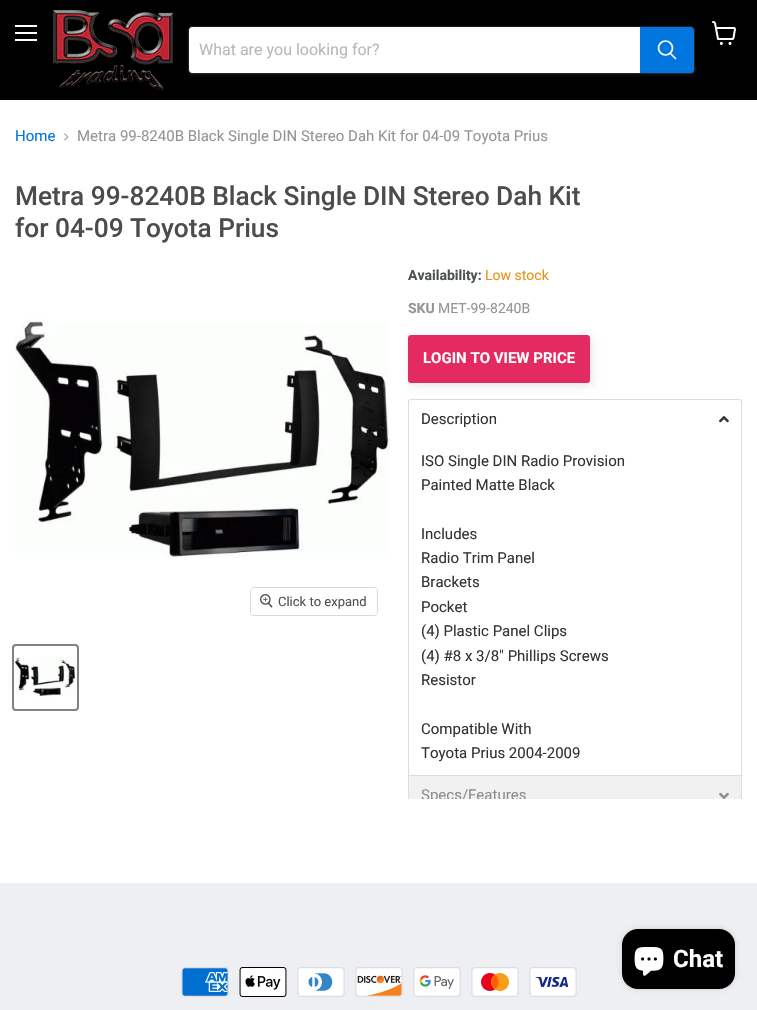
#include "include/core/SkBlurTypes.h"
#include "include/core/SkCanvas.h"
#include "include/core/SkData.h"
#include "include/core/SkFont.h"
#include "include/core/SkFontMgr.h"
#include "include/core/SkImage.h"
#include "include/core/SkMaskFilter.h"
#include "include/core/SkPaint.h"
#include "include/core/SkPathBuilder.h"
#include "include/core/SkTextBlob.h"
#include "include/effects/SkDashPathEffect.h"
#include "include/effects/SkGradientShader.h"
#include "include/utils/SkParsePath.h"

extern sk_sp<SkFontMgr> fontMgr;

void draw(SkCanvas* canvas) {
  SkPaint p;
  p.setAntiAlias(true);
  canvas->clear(SK_ColorWHITE);
  p.setColor(SK_ColorBLACK);
  canvas->drawRect(SkRect::MakeLTRB(0, 0, 757, 100), p);
  p.setColor(SK_ColorWHITE);
  canvas->drawRect(SkRect::MakeLTRB(15, 25, 37, 27), p);
  canvas->drawRect(SkRect::MakeLTRB(15, 32, 37, 34), p);
  canvas->drawRect(SkRect::MakeLTRB(15, 39, 37, 41), p);
  canvas->drawImageRect(SkImages::DeferredFromEncodedData(SkData::MakeFromFileName("images/1.png")), SkRect::MakeLTRB(712, 21, 736, 45), SkSamplingOptions());
  canvas->drawImageRect(SkImages::DeferredFromEncodedData(SkData::MakeFromFileName("images/2.png")), SkRect::MakeLTRB(53, 10, 173, 90), SkSamplingOptions());
  p.setColor(SkColorSetARGB(28, 128, 128, 128));
  p.setMaskFilter(SkMaskFilter::MakeBlur(kNormal_SkBlurStyle, 1.5f));
  canvas->drawRoundRect(SkRect::MakeLTRB(188, 28, 695, 76), 4, 4, p);
  p.setMaskFilter(nullptr);
  p.setStyle(SkPaint::kStroke_Style);
  p.setStrokeWidth(1);
  p.setColor(SkColorSetARGB(51, 128, 128, 128));
  canvas->drawRoundRect(SkRect::MakeLTRB(188.5f, 26.5f, 694.5f, 73.5f), 3.5f, 3.5f, p);
  p.setStyle(SkPaint::kFill_Style);
  p.setColor(SK_ColorWHITE);
  canvas->drawPath(SkPathBuilder().moveTo(192, 27).lineTo(640, 27).lineTo(640, 73).lineTo(192, 73).cubicTo(190.5f, 73, 189, 71.5f, 189, 70).lineTo(189, 30).cubicTo(189, 28.5f, 190.5f, 27, 192, 27).close().detach(), p);
  p.setColor(SkColorSetRGB(0, 118, 222));
  canvas->drawPath(SkPathBuilder().moveTo(640.5f, 27.5f).lineTo(691, 27.5f).cubicTo(692.5f, 27.5f, 693.5f, 28.5f, 693.5f, 30).lineTo(693.5f, 70).cubicTo(693.5f, 71.5f, 692.5f, 72.5f, 691, 72.5f).lineTo(640.5f, 72.5f).close().detach(), p);
  p.setStyle(SkPaint::kStroke_Style);
  canvas->drawPath(SkPathBuilder().moveTo(640.5f, 27.5f).lineTo(691, 27.5f).cubicTo(692.5f, 27.5f, 693.5f, 28.5f, 693.5f, 30).lineTo(693.5f, 70).cubicTo(693.5f, 71.5f, 692.5f, 72.5f, 691, 72.5f).lineTo(640.5f, 72.5f).close().detach(), p);
  p.setStrokeWidth(1.7f);
  p.setStrokeCap(SkPaint::kRound_Cap);
  p.setColor(SK_ColorWHITE);
  canvas->drawPath(SkPathBuilder().moveTo(675.5f, 58.5f).lineTo(670.5f, 53.5f).detach(), p);
  p.setStrokeCap(SkPaint::kButt_Cap);
  canvas->drawCircle(665.5f, 48, 7, p);
  canvas->drawImageRect(SkImages::DeferredFromEncodedData(SkData::MakeFromFileName("images/3.png")), SkRect::MakeLTRB(64, 133, 69, 141), SkSamplingOptions());
  canvas->drawImageRect(SkImages::DeferredFromEncodedData(SkData::MakeFromFileName("images/4.png")), SkRect::MakeLTRB(15, 319, 389, 558), SkSamplingOptions());
  p.setStrokeWidth(1);
  p.setColor(SkColorSetRGB(217, 217, 217));
  canvas->drawRoundRect(SkRect::MakeLTRB(250.5f, 587.5f, 377.5f, 615.5f), 3.5f, 3.5f, p);
  p.setStyle(SkPaint::kFill_Style);
  p.setColor(SkColorSetARGB(230, 255, 255, 255));
  canvas->drawRoundRect(SkRect::MakeLTRB(251, 588, 377, 615), 3, 3, p);
  canvas->drawImageRect(SkImages::DeferredFromEncodedData(SkData::MakeFromFileName("images/5.png")), SkRect::MakeLTRB(260, 594, 273, 608), SkSamplingOptions());
  p.setStyle(SkPaint::kStroke_Style);
  p.setStrokeWidth(2);
  p.setColor(SkColorSetRGB(129, 129, 129));
  canvas->drawRoundRect(SkRect::MakeLTRB(13, 645, 78, 710), 3, 3, p);
  canvas->drawImageRect(SkImages::DeferredFromEncodedData(SkData::MakeFromFileName("images/6.png")), SkRect::MakeLTRB(15, 657, 75, 697), SkSamplingOptions());
  p.setStyle(SkPaint::kFill_Style);
  p.setColor(SkColorSetARGB(26, 0, 0, 0));
  p.setMaskFilter(SkMaskFilter::MakeBlur(kNormal_SkBlurStyle, 5));
  canvas->drawRoundRect(SkRect::MakeLTRB(410, 337, 592, 385), 3, 3, p);
  p.setMaskFilter(nullptr);
  p.setColor(SkColorSetRGB(228, 43, 97));
  canvas->drawRoundRect(SkRect::MakeLTRB(408, 335, 590, 383), 3, 3, p);
  p.setColor(SkColorSetRGB(221, 221, 221));
  canvas->drawRect(SkRect::MakeLTRB(741, 438, 742, 775), p);
  canvas->drawRect(SkRect::MakeLTRB(408, 438, 409, 775), p);
  canvas->drawPath(SkPathBuilder(SkPathFillType::kEvenOdd).moveTo(411, 399).lineTo(739, 399).cubicTo(741, 399, 742, 400, 742, 402).lineTo(742, 439).lineTo(408, 439).lineTo(408, 402).cubicTo(408, 400, 409, 399, 411, 399).close().moveTo(411, 400).lineTo(739, 400).cubicTo(740, 400, 741, 401, 741, 402).lineTo(741, 439).lineTo(409, 439).lineTo(409, 402).cubicTo(409, 401, 410, 400, 411, 400).close().detach(), p);
  canvas->drawImageRect(SkImages::DeferredFromEncodedData(SkData::MakeFromFileName("images/7.png")), SkRect::MakeLTRB(719, 416, 729, 423), SkSamplingOptions());
  p.setColor(SkColorSetRGB(241, 241, 241));
  canvas->drawRect(SkRect::MakeLTRB(409, 776, 741, 799), p);
  p.setColor(SkColorSetRGB(221, 221, 221));
  canvas->drawRect(SkRect::MakeLTRB(408, 775, 742, 776), p);
  canvas->drawRect(SkRect::MakeLTRB(741, 775, 742, 799), p);
  canvas->drawRect(SkRect::MakeLTRB(408, 775, 409, 799), p);
  canvas->drawImageRect(SkImages::DeferredFromEncodedData(SkData::MakeFromFileName("images/8.png")), SkRect::MakeLTRB(719, 792, 729, 799), SkSamplingOptions());
  p.setColor(SkColorSetRGB(237, 239, 243));
  canvas->drawRect(SkRect::MakeLTRB(0, 883, 757, 1010), p);
  canvas->drawImageRect(SkImages::DeferredFromEncodedData(SkData::MakeFromFileName("images/9.png")), SkRect::MakeLTRB(181, 967, 229, 997), SkSamplingOptions());
  canvas->drawImageRect(SkImages::DeferredFromEncodedData(SkData::MakeFromFileName("images/10.png")), SkRect::MakeLTRB(239, 967, 287, 997), SkSamplingOptions());
  canvas->drawImageRect(SkImages::DeferredFromEncodedData(SkData::MakeFromFileName("images/11.png")), SkRect::MakeLTRB(297, 967, 345, 997), SkSamplingOptions());
  canvas->drawImageRect(SkImages::DeferredFromEncodedData(SkData::MakeFromFileName("images/12.png")), SkRect::MakeLTRB(355, 967, 403, 997), SkSamplingOptions());
  canvas->drawImageRect(SkImages::DeferredFromEncodedData(SkData::MakeFromFileName("images/13.png")), SkRect::MakeLTRB(413, 967, 461, 997), SkSamplingOptions());
  canvas->drawImageRect(SkImages::DeferredFromEncodedData(SkData::MakeFromFileName("images/14.png")), SkRect::MakeLTRB(471, 967, 519, 997), SkSamplingOptions());
  canvas->drawImageRect(SkImages::DeferredFromEncodedData(SkData::MakeFromFileName("images/15.png")), SkRect::MakeLTRB(529, 967, 577, 997), SkSamplingOptions());
  p.setColor(SkColorSetARGB(38, 0, 0, 0));
  p.setMaskFilter(SkMaskFilter::MakeBlur(kNormal_SkBlurStyle, 2.5f));
  canvas->drawRoundRect(SkRect::MakeLTRB(622, 929, 735, 989), 16, 16, p);
  p.setMaskFilter(nullptr);
  p.setColor(SK_ColorBLACK);
  canvas->drawRoundRect(SkRect::MakeLTRB(622, 929, 735, 989), 16, 16, p);
  canvas->drawImageRect(SkImages::DeferredFromEncodedData(SkData::MakeFromFileName("images/16.png")), SkRect::MakeLTRB(634, 947, 664, 976), SkSamplingOptions());
  SkFont font1(fontMgr->matchFamilyStyle("Roboto", SkFontStyle::Normal()), 16);
  font1.setSubpixel(true);
  p.setColor(SkColorSetRGB(184, 184, 184));
  canvas->drawString("What are you looking for?", 199, 55, font1, p);
  SkFont font2(fontMgr->matchFamilyStyle("Roboto", SkFontStyle::Normal()), 15);
  font2.setSubpixel(true);
  p.setColor(SkColorSetRGB(0, 118, 222));
  canvas->drawString("Home", 15, 141, font2, p);
  p.setColor(SkColorSetRGB(148, 148, 148));
  canvas->drawString("Metra 99-8240B Black Single DIN Stereo Dah Kit for 04-09 Toyota Prius", 77, 141, font2, p);
  SkFont font3(fontMgr->matchFamilyStyle("Roboto", SkFontStyle(500, SkFontStyle::kNormal_Width, SkFontStyle::kUpright_Slant)), 26.25f);
  font3.setSubpixel(true);
  p.setColor(SkColorSetRGB(76, 76, 76));
  canvas->drawString("Metra 99-8240B Black Single DIN Stereo Dah Kit", 15, 205, font3, p);
  canvas->drawString("for 04-09 Toyota Prius", 15, 237, font3, p);
  SkFont font4(fontMgr->matchFamilyStyle("Roboto", SkFontStyle::Normal()), 13);
  font4.setSubpixel(true);
  p.setColor(SkColorSetRGB(76, 81, 84));
  canvas->drawString("Click to expand", 278, 606, font4, p);
  SkFont font5(fontMgr->matchFamilyStyle("Roboto", SkFontStyle::Bold()), 14);
  font5.setSubpixel(true);
  canvas->drawString("Availability:", 408, 280, font5, p);
  SkFont font6(fontMgr->matchFamilyStyle("Roboto", SkFontStyle::Normal()), 14);
  font6.setSubpixel(true);
  p.setColor(SkColorSetRGB(233, 145, 20));
  canvas->drawString("Low stock", 485, 280, font6, p);
  p.setColor(SkColorSetRGB(148, 148, 148));
  canvas->drawString("SKU", 408, 313, font5, p);
  canvas->drawString("MET-99-8240B", 438, 313, font6, p);
  SkFont font7(fontMgr->matchFamilyStyle("Roboto", SkFontStyle::Bold()), 15);
  font7.setSubpixel(true);
  p.setColor(SK_ColorWHITE);
  canvas->drawString("LOGIN TO VIEW PRICE", 423, 363, font7, p);
  p.setColor(SkColorSetRGB(51, 51, 51));
  canvas->drawString("Description", 421, 424, font2, p);
  canvas->drawString("ISO Single DIN Radio Provision", 421, 466, font2, p);
  canvas->drawString("Painted Matte Black", 421, 490, font2, p);
  canvas->drawString("Includes", 421, 539, font2, p);
  canvas->drawString("Radio Trim Panel", 421, 563, font2, p);
  canvas->drawString("Brackets", 421, 587, font2, p);
  canvas->drawString("Pocket", 421, 612, font2, p);
  canvas->drawString("(4) Plastic Panel Clips", 421, 636, font2, p);
  canvas->drawString("(4) #8 x 3/8\" Phillips Screws", 421, 661, font2, p);
  canvas->drawString("Resistor", 421, 685, font2, p);
  canvas->drawString("Compatible With", 421, 734, font2, p);
  canvas->drawString("Toyota Prius 2004-2009", 421, 758, font2, p);
  canvas->save();
  canvas->clipRect(SkRect::MakeLTRB(409, 776, 741, 799));
  p.setColor(SkColorSetRGB(141, 141, 141));
  canvas->drawString("Specs/Features", 421, 800, font2, p);
  canvas->restore();
  SkFont font8(fontMgr->matchFamilyStyle("Roboto", SkFontStyle::Bold()), 24);
  font8.setSubpixel(true);
  p.setColor(SK_ColorWHITE);
  canvas->drawString("Chat", 673, 967, font8, p);
}
